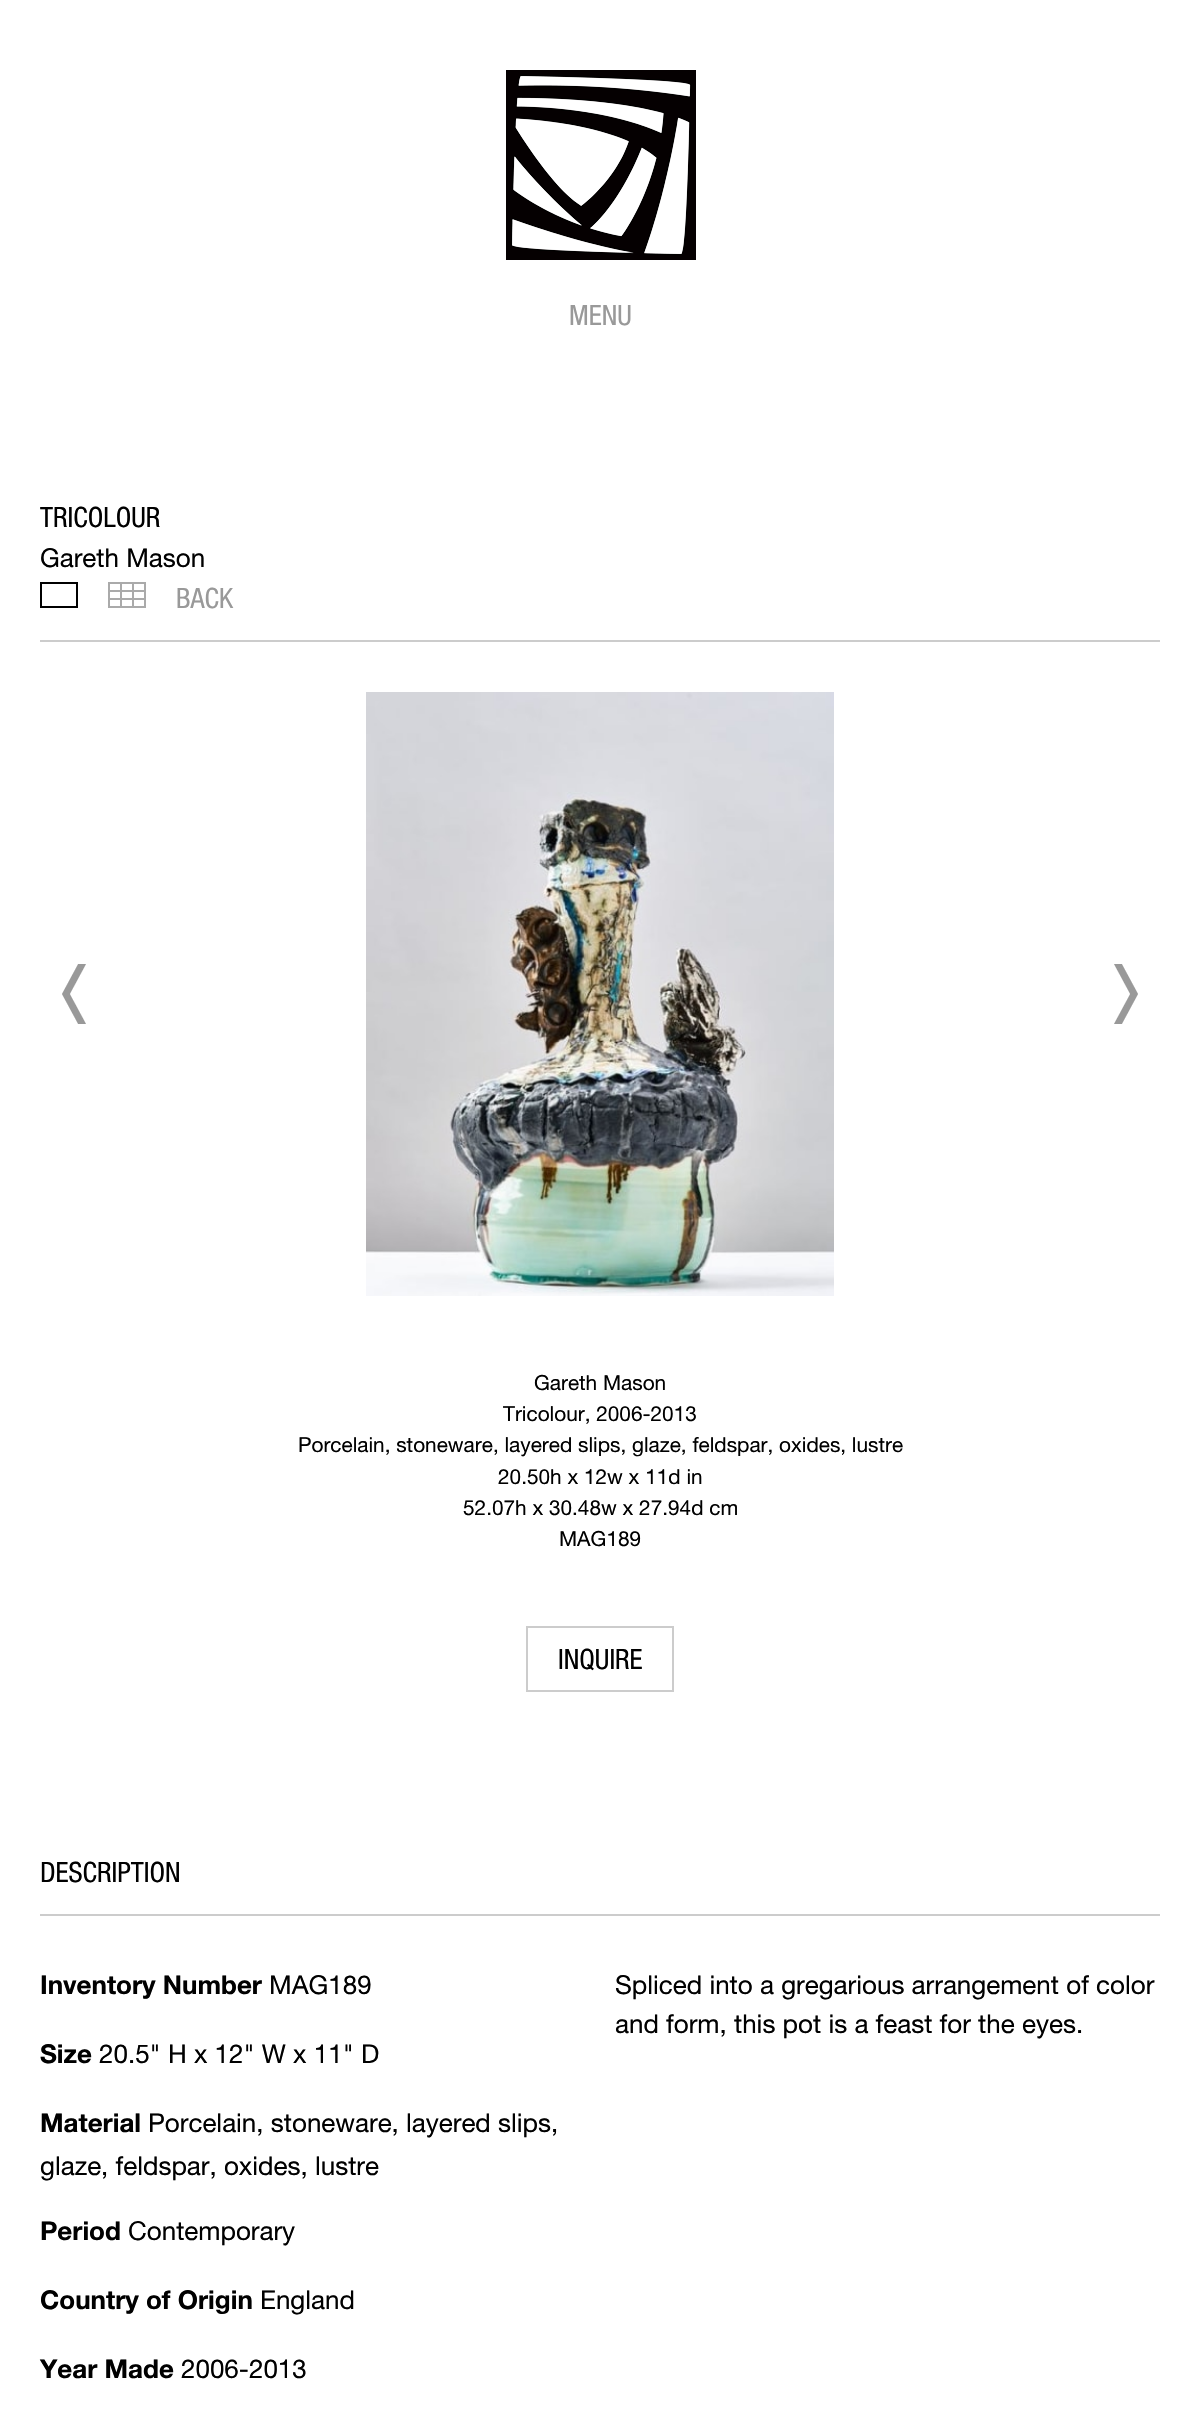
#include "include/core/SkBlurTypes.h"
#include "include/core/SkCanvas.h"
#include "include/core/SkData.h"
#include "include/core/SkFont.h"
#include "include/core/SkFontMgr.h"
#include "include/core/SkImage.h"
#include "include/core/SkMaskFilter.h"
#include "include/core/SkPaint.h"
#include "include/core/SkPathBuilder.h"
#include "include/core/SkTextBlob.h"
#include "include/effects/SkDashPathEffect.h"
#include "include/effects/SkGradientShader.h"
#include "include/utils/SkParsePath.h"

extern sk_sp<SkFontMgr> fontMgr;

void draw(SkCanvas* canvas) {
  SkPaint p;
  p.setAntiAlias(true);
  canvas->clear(SK_ColorWHITE);
  canvas->drawImageRect(SkImages::DeferredFromEncodedData(SkData::MakeFromFileName("images/1.png")), SkRect::MakeLTRB(506, 70, 696, 260), SkSamplingOptions());
  p.setColor(SkColorSetRGB(204, 204, 204));
  canvas->drawRect(SkRect::MakeLTRB(40, 640, 1160, 642), p);
  p.setStyle(SkPaint::kStroke_Style);
  p.setStrokeWidth(2);
  p.setColor(SK_ColorBLACK);
  canvas->drawRect(SkRect::MakeLTRB(41, 583, 77, 607), p);
  p.setColor(SkColorSetRGB(170, 170, 170));
  canvas->drawRect(SkRect::MakeLTRB(109, 583, 145, 607), p);
  canvas->drawRect(SkRect::MakeLTRB(109, 591, 145, 599), p);
  canvas->drawRect(SkRect::MakeLTRB(121, 583, 133, 607), p);
  canvas->drawImageRect(SkImages::DeferredFromEncodedData(SkData::MakeFromFileName("images/2.png")), SkRect::MakeLTRB(62, 964, 86, 1024), SkSamplingOptions());
  canvas->drawImageRect(SkImages::DeferredFromEncodedData(SkData::MakeFromFileName("images/3.png")), SkRect::MakeLTRB(1114, 964, 1138, 1024), SkSamplingOptions());
  canvas->drawImageRect(SkImages::DeferredFromEncodedData(SkData::MakeFromFileName("images/4.png")), SkRect::MakeLTRB(366, 692, 834, 1296), SkSamplingOptions());
  p.setColor(SkColorSetRGB(204, 204, 204));
  canvas->drawRect(SkRect::MakeLTRB(527, 1627, 673, 1691), p);
  p.setStyle(SkPaint::kFill_Style);
  canvas->drawRect(SkRect::MakeLTRB(40, 1914, 1160, 1916), p);
  SkFont font1(fontMgr->matchFamilyStyle("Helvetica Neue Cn", SkFontStyle::Normal()), 28);
  font1.setSubpixel(true);
  p.setColor(SkColorSetRGB(153, 153, 153));
  canvas->drawString("MENU", 569, 325, font1, p);
  p.setColor(SK_ColorBLACK);
  canvas->drawString("TRICOLOUR", 40, 527, font1, p);
  SkFont font2(fontMgr->matchFamilyStyle("Helvetica Neue", SkFontStyle::Normal()), 26);
  font2.setSubpixel(true);
  canvas->drawString("Gareth Mason", 40, 567, font2, p);
  p.setColor(SkColorSetRGB(153, 153, 153));
  canvas->drawString("BACK", 176, 608, font1, p);
  SkFont font3(fontMgr->matchFamilyStyle("Helvetica Neue", SkFontStyle::Normal()), 20.8f);
  font3.setSubpixel(true);
  p.setColor(SK_ColorBLACK);
  canvas->drawString("Gareth Mason", 534, 1390, font3, p);
  canvas->drawString("Tricolour, 2006-2013", 503, 1421, font3, p);
  canvas->drawString("Porcelain, stoneware, layered slips, glaze, feldspar, oxides, lustre", 298, 1452, font3, p);
  canvas->drawString("20.50h x 12w x 11d in", 498, 1484, font3, p);
  canvas->drawString("52.07h x 30.48w x 27.94d cm", 463, 1515, font3, p);
  canvas->drawString("MAG189", 559, 1546, font3, p);
  canvas->drawString("INQUIRE", 558, 1669, font1, p);
  canvas->drawString("DESCRIPTION", 40, 1882, font1, p);
  SkFont font4(fontMgr->matchFamilyStyle("Helvetica Neue", SkFontStyle::Bold()), 26);
  font4.setSubpixel(true);
  canvas->drawString("Inventory Number", 40, 1994, font4, p);
  canvas->drawString("MAG189", 269, 1994, font2, p);
  canvas->drawString("Size", 40, 2063, font4, p);
  canvas->drawString("20.5\" H x 12\" W x 11\" D", 99, 2063, font2, p);
  canvas->drawString("Material", 40, 2132, font4, p);
  canvas->drawString("Porcelain, stoneware, layered slips,", 148, 2132, font2, p);
  canvas->drawString("glaze, feldspar, oxides, lustre", 40, 2175, font2, p);
  canvas->drawString("Period", 40, 2240, font4, p);
  canvas->drawString("Contemporary", 128, 2240, font2, p);
  canvas->drawString("Country of Origin", 40, 2309, font4, p);
  canvas->drawString("England", 260, 2309, font2, p);
  canvas->drawString("Year Made", 40, 2378, font4, p);
  canvas->drawString("2006-2013", 181, 2378, font2, p);
  canvas->drawString("Spliced into a gregarious arrangement of color", 615, 1994, font2, p);
  canvas->drawString("and form, this pot is a feast for the eyes.", 615, 2033, font2, p);
}
